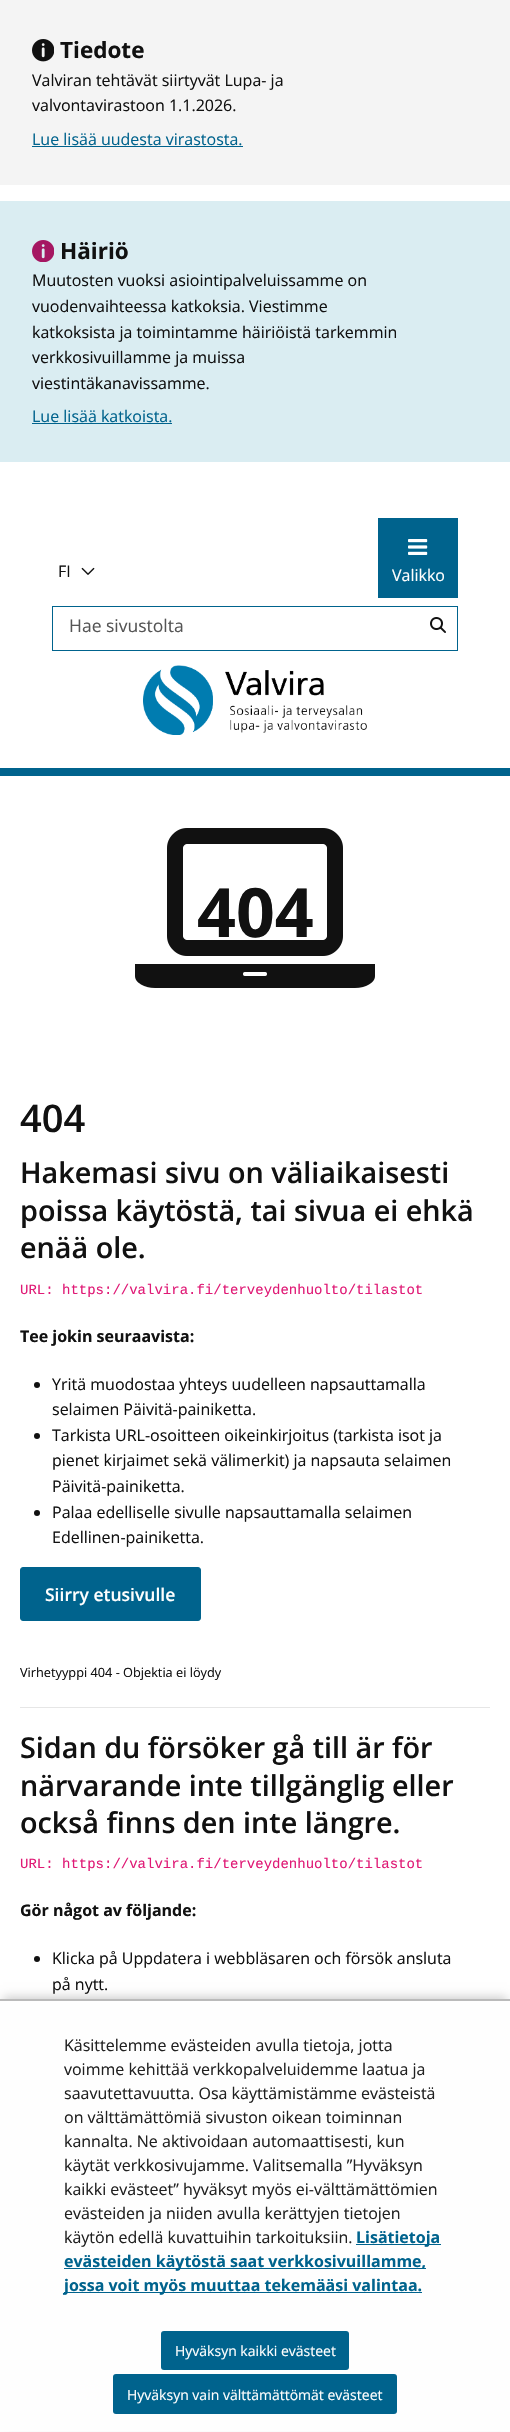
#include "include/core/SkBlurTypes.h"
#include "include/core/SkCanvas.h"
#include "include/core/SkData.h"
#include "include/core/SkFont.h"
#include "include/core/SkFontMgr.h"
#include "include/core/SkImage.h"
#include "include/core/SkMaskFilter.h"
#include "include/core/SkPaint.h"
#include "include/core/SkPathBuilder.h"
#include "include/core/SkTextBlob.h"
#include "include/effects/SkDashPathEffect.h"
#include "include/effects/SkGradientShader.h"
#include "include/utils/SkParsePath.h"

extern sk_sp<SkFontMgr> fontMgr;

void draw(SkCanvas* canvas) {
  SkPaint p;
  p.setAntiAlias(true);
  canvas->clear(SK_ColorWHITE);
  p.setColor(SkColorSetRGB(0, 99, 141));
  canvas->drawRect(SkRect::MakeLTRB(0, 768, 510, 776), p);
  p.setColor(SkColorSetRGB(244, 244, 244));
  canvas->drawRect(SkRect::MakeLTRB(0, 0, 510, 185), p);
  canvas->drawImageRect(SkImages::DeferredFromEncodedData(SkData::MakeFromFileName("images/1.png")), SkRect::MakeLTRB(32, 39, 54, 62), SkSamplingOptions());
  p.setColor(SkColorSetRGB(0, 99, 141));
  canvas->drawRect(SkRect::MakeLTRB(32, 146, 243, 147), p);
  p.setColor(SkColorSetRGB(218, 237, 242));
  canvas->drawRect(SkRect::MakeLTRB(0, 201, 510, 462), p);
  canvas->drawImageRect(SkImages::DeferredFromEncodedData(SkData::MakeFromFileName("images/2.png")), SkRect::MakeLTRB(32, 240, 54, 262), SkSamplingOptions());
  p.setColor(SkColorSetRGB(0, 99, 141));
  canvas->drawRect(SkRect::MakeLTRB(32, 423, 172, 424), p);
  canvas->drawImageRect(SkImages::DeferredFromEncodedData(SkData::MakeFromFileName("images/3.png")), SkRect::MakeLTRB(81, 567, 95, 575), SkSamplingOptions());
  canvas->drawRect(SkRect::MakeLTRB(378, 518, 458, 598), p);
  canvas->drawImageRect(SkImages::DeferredFromEncodedData(SkData::MakeFromFileName("images/4.png")), SkRect::MakeLTRB(408, 539, 428, 555), SkSamplingOptions());
  p.setStyle(SkPaint::kStroke_Style);
  p.setStrokeWidth(1);
  canvas->drawRect(SkRect::MakeLTRB(52.5f, 606.5f, 457.5f, 650.5f), p);
  canvas->drawImageRect(SkImages::DeferredFromEncodedData(SkData::MakeFromFileName("images/5.png")), SkRect::MakeLTRB(430, 617, 446, 633), SkSamplingOptions());
  canvas->drawImageRect(SkImages::DeferredFromEncodedData(SkData::MakeFromFileName("images/6.png")), SkRect::MakeLTRB(143, 665, 367, 735), SkSamplingOptions());
  canvas->drawImageRect(SkImages::DeferredFromEncodedData(SkData::MakeFromFileName("images/7.png")), SkRect::MakeLTRB(135, 828, 375, 988), SkSamplingOptions());
  p.setStyle(SkPaint::kFill_Style);
  p.setColor(SkColorSetRGB(17, 17, 17));
  canvas->drawCircle(37, 1385, 3, p);
  canvas->drawCircle(37, 1436, 3, p);
  canvas->drawCircle(37, 1513, 3, p);
  p.setColor(SkColorSetRGB(0, 99, 141));
  canvas->drawRoundRect(SkRect::MakeLTRB(20.5f, 1567.5f, 200.5f, 1620.5f), 2.5f, 2.5f, p);
  p.setStyle(SkPaint::kStroke_Style);
  canvas->drawRoundRect(SkRect::MakeLTRB(20.5f, 1567.5f, 200.5f, 1620.5f), 2.5f, 2.5f, p);
  p.setStyle(SkPaint::kFill_Style);
  p.setColor(SkColorSetRGB(230, 230, 230));
  canvas->drawRect(SkRect::MakeLTRB(20, 1707, 490, 1708), p);
  p.setColor(SkColorSetRGB(17, 17, 17));
  canvas->drawCircle(37, 1959, 3, p);
  p.setColor(SkColorSetARGB(51, 0, 0, 0));
  p.setMaskFilter(SkMaskFilter::MakeBlur(kNormal_SkBlurStyle, 5));
  canvas->drawRect(SkRect::MakeLTRB(3, 1997, 507, 2424), p);
  p.setMaskFilter(nullptr);
  p.setColor(SkColorSetRGB(254, 254, 254));
  canvas->drawRect(SkRect::MakeLTRB(0, 2001, 510, 2431), p);
  p.setColor(SkColorSetRGB(186, 186, 186));
  canvas->drawRect(SkRect::MakeLTRB(0, 1999, 510, 2001), p);
  p.setColor(SkColorSetRGB(0, 99, 141));
  canvas->drawRect(SkRect::MakeLTRB(356, 2244, 441, 2245), p);
  canvas->drawRect(SkRect::MakeLTRB(64, 2268, 426, 2269), p);
  canvas->drawRect(SkRect::MakeLTRB(64, 2292, 422, 2293), p);
  canvas->drawRoundRect(SkRect::MakeLTRB(161, 2331, 349, 2370), 3, 3, p);
  canvas->drawRoundRect(SkRect::MakeLTRB(113, 2374, 397, 2414), 3, 3, p);
  SkFont font1(fontMgr->matchFamilyStyle("Open Sans", SkFontStyle::Bold()), 22.5f);
  font1.setSubpixel(true);
  p.setColor(SkColorSetRGB(17, 17, 17));
  canvas->drawString("Tiedote", 60, 58, font1, p);
  SkFont font2(fontMgr->matchFamilyStyle("Open Sans", SkFontStyle::Normal()), 16);
  font2.setSubpixel(true);
  canvas->drawString("Valviran tehtävät siirtyvät Lupa- ja", 32, 86, font2, p);
  canvas->drawString("valvontavirastoon 1.1.2026.", 32, 111, font2, p);
  p.setColor(SkColorSetRGB(0, 99, 141));
  canvas->drawString("Lue lisää uudesta virastosta.", 32, 145, font2, p);
  p.setColor(SkColorSetRGB(17, 17, 17));
  canvas->drawString("Häiriö", 60, 259, font1, p);
  canvas->drawString("Muutosten vuoksi asiointipalveluissamme on", 32, 286, font2, p);
  canvas->drawString("vuodenvaihteessa katkoksia. Viestimme", 32, 312, font2, p);
  canvas->drawString("katkoksista ja toimintamme häiriöistä tarkemmin", 32, 338, font2, p);
  canvas->drawString("verkkosivuillamme ja muissa", 32, 363, font2, p);
  canvas->drawString("viestintäkanavissamme.", 32, 389, font2, p);
  p.setColor(SkColorSetRGB(0, 99, 141));
  canvas->drawString("Lue lisää katkoista.", 32, 422, font2, p);
  p.setColor(SkColorSetRGB(17, 17, 17));
  canvas->drawString("FI", 58, 577, font2, p);
  p.setColor(SK_ColorWHITE);
  canvas->drawString("Valikko", 392, 581, font2, p);
  SkFont font3(fontMgr->matchFamilyStyle("Open Sans", SkFontStyle::Normal()), 17.5f);
  font3.setSubpixel(true);
  p.setColor(SkColorSetRGB(85, 85, 85));
  canvas->drawString("Hae sivustolta", 69, 632, font3, p);
  SkFont font4(fontMgr->matchFamilyStyle("Open Sans", SkFontStyle::Bold()), 68);
  font4.setSubpixel(true);
  p.setColor(SkColorSetRGB(17, 17, 17));
  canvas->drawString("404", 197, 937, font4, p);
  SkFont font5(fontMgr->matchFamilyStyle("Open Sans", SkFontStyle(600, SkFontStyle::kNormal_Width, SkFontStyle::kUpright_Slant)), 38);
  font5.setSubpixel(true);
  canvas->drawString("404", 20, 1132, font5, p);
  SkFont font6(fontMgr->matchFamilyStyle("Open Sans", SkFontStyle(600, SkFontStyle::kNormal_Width, SkFontStyle::kUpright_Slant)), 28.75f);
  font6.setSubpixel(true);
  canvas->drawString("Hakemasi sivu on väliaikaisesti", 20, 1183, font6, p);
  canvas->drawString("poissa käytöstä, tai sivua ei ehkä", 20, 1221, font6, p);
  canvas->drawString("enää ole.", 20, 1258, font6, p);
  SkFont font7(fontMgr->matchFamilyStyle("Liberation Mono", SkFontStyle::Normal()), 14);
  font7.setSubpixel(true);
  p.setColor(SkColorSetRGB(224, 26, 118));
  canvas->drawString("URL: https://valvira.fi/terveydenhuolto/tilastot", 20, 1294, font7, p);
  SkFont font8(fontMgr->matchFamilyStyle("Open Sans", SkFontStyle::Bold()), 16);
  font8.setSubpixel(true);
  p.setColor(SkColorSetRGB(17, 17, 17));
  canvas->drawString("Tee jokin seuraavista:", 20, 1342, font8, p);
  canvas->drawString("Yritä muodostaa yhteys uudelleen napsauttamalla", 52, 1390, font2, p);
  canvas->drawString("selaimen Päivitä-painiketta.", 52, 1415, font2, p);
  canvas->drawString("Tarkista URL-osoitteen oikeinkirjoitus (tarkista isot ja", 52, 1441, font2, p);
  canvas->drawString("pienet kirjaimet sekä välimerkit) ja napsauta selaimen", 52, 1466, font2, p);
  canvas->drawString("Päivitä-painiketta.", 52, 1492, font2, p);
  canvas->drawString("Palaa edelliselle sivulle napsauttamalla selaimen", 52, 1518, font2, p);
  canvas->drawString("Edellinen-painiketta.", 52, 1543, font2, p);
  SkFont font9(fontMgr->matchFamilyStyle("Open Sans", SkFontStyle(600, SkFontStyle::kNormal_Width, SkFontStyle::kUpright_Slant)), 17.5f);
  font9.setSubpixel(true);
  p.setColor(SK_ColorWHITE);
  canvas->drawString("Siirry etusivulle", 45, 1601, font9, p);
  SkFont font10(fontMgr->matchFamilyStyle("Open Sans", SkFontStyle::Normal()), 12.75f);
  font10.setSubpixel(true);
  p.setColor(SkColorSetRGB(17, 17, 17));
  canvas->drawString("Virhetyyppi 404 - Objektia ei löydy", 20, 1677, font10, p);
  canvas->drawString("Sidan du försöker gå till är för", 20, 1758, font6, p);
  canvas->drawString("närvarande inte tillgänglig eller", 20, 1796, font6, p);
  canvas->drawString("också finns den inte längre.", 20, 1833, font6, p);
  p.setColor(SkColorSetRGB(224, 26, 118));
  canvas->drawString("URL: https://valvira.fi/terveydenhuolto/tilastot", 20, 1868, font7, p);
  p.setColor(SkColorSetRGB(17, 17, 17));
  canvas->drawString("Gör något av följande:", 20, 1916, font8, p);
  canvas->drawString("Klicka på Uppdatera i webbläsaren och försök ansluta", 52, 1964, font2, p);
  canvas->drawString("på nytt.", 52, 1990, font2, p);
  p.setColor(SkColorSetRGB(33, 33, 33));
  canvas->drawString("Käsittelemme evästeiden avulla tietoja, jotta", 64, 2051, font2, p);
  canvas->drawString("voimme kehittää verkkopalveluidemme laatua ja", 64, 2075, font2, p);
  canvas->drawString("saavutettavuutta. Osa käyttämistämme evästeistä", 64, 2099, font2, p);
  canvas->drawString("on välttämättömiä sivuston oikean toiminnan", 64, 2123, font2, p);
  canvas->drawString("kannalta. Ne aktivoidaan automaattisesti, kun", 64, 2147, font2, p);
  canvas->drawString("käytät verkkosivujamme. Valitsemalla ”Hyväksyn", 64, 2171, font2, p);
  canvas->drawString("kaikki evästeet” hyväksyt myös ei-välttämättömien", 64, 2195, font2, p);
  canvas->drawString("evästeiden ja niiden avulla kerättyjen tietojen", 64, 2219, font2, p);
  canvas->drawString("käytön edellä kuvattuihin tarkoituksiin.", 64, 2243, font2, p);
  p.setColor(SkColorSetRGB(0, 99, 141));
  canvas->drawString("Lisätietoja", 356, 2243, font8, p);
  canvas->drawString("evästeiden käytöstä saat verkkosivuillamme,", 64, 2267, font8, p);
  canvas->drawString("jossa voit myös muuttaa tekemääsi valintaa.", 64, 2291, font8, p);
  SkFont font11(fontMgr->matchFamilyStyle("Open Sans", SkFontStyle::Normal()), 14);
  font11.setSubpixel(true);
  p.setColor(SK_ColorWHITE);
  canvas->drawString("Hyväksyn kaikki evästeet", 175, 2356, font11, p);
  canvas->drawString("Hyväksyn vain välttämättömät evästeet", 127, 2400, font11, p);
}
